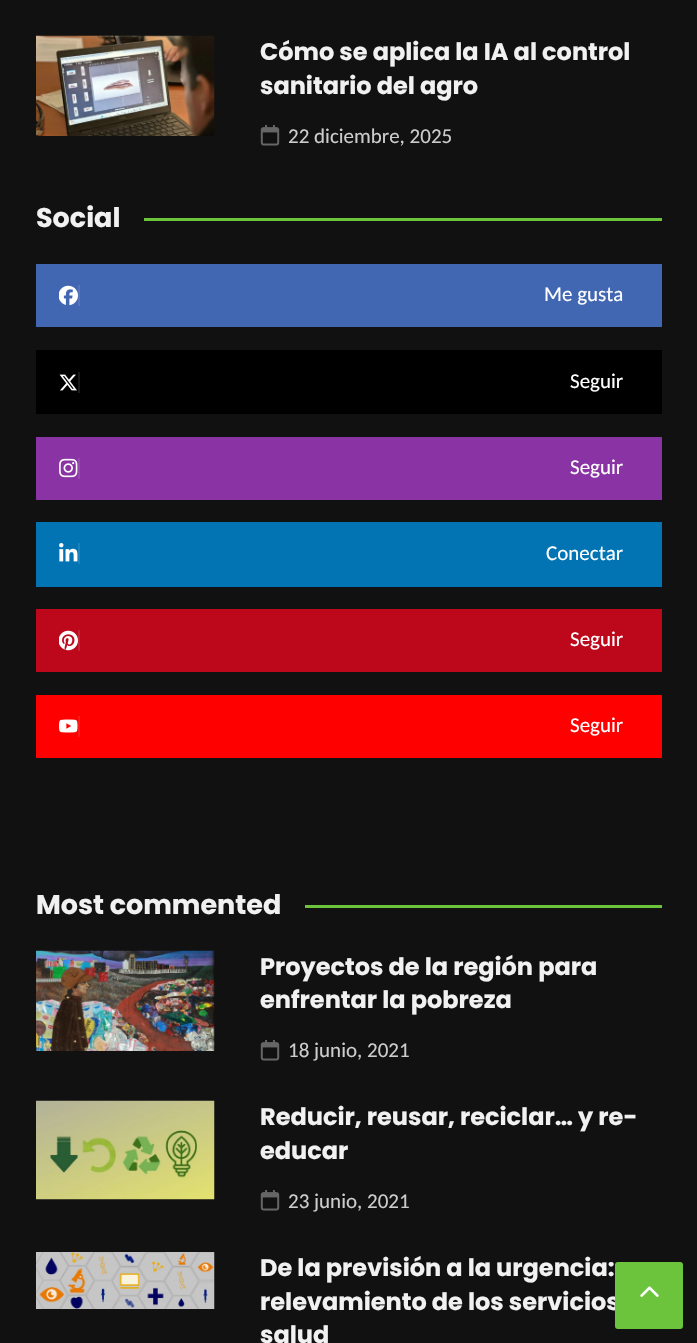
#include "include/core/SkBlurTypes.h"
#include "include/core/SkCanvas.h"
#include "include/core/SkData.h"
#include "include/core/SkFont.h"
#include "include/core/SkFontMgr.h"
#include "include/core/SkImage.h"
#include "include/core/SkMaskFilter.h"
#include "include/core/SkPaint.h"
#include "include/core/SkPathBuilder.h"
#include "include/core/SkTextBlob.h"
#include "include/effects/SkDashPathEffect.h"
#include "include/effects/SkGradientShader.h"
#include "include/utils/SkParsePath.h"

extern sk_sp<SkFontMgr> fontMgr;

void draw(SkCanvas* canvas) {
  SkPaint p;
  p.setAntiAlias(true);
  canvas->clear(SkColorSetRGB(17, 17, 17));
  canvas->drawImageRect(SkImages::DeferredFromEncodedData(SkData::MakeFromFileName("images/1.png")), SkRect::MakeLTRB(36, 35, 215, 136), SkSamplingOptions());
  canvas->drawImageRect(SkImages::DeferredFromEncodedData(SkData::MakeFromFileName("images/2.png")), SkRect::MakeLTRB(260, 125, 280, 146), SkSamplingOptions());
  p.setColor(SkColorSetRGB(108, 196, 60));
  canvas->drawRect(SkRect::MakeLTRB(144, 218, 662, 221), p);
  p.setColor(SkColorSetRGB(66, 103, 178));
  canvas->drawRect(SkRect::MakeLTRB(36, 264, 662, 327), p);
  p.setColor(SkColorSetRGB(85, 118, 186));
  canvas->drawRect(SkRect::MakeLTRB(78, 285, 80, 306), p);
  canvas->drawImageRect(SkImages::DeferredFromEncodedData(SkData::MakeFromFileName("images/3.png")), SkRect::MakeLTRB(59, 285, 78, 306), SkSamplingOptions());
  p.setColor(SK_ColorBLACK);
  canvas->drawRect(SkRect::MakeLTRB(36, 350, 662, 414), p);
  p.setColor(SkColorSetRGB(26, 26, 26));
  canvas->drawRect(SkRect::MakeLTRB(78, 372, 80, 393), p);
  canvas->drawImageRect(SkImages::DeferredFromEncodedData(SkData::MakeFromFileName("images/4.png")), SkRect::MakeLTRB(59, 374, 77, 391), SkSamplingOptions());
  p.setColor(SkColorSetRGB(138, 51, 164));
  canvas->drawRect(SkRect::MakeLTRB(36, 437, 662, 500), p);
  p.setColor(SkColorSetRGB(150, 71, 173));
  canvas->drawRect(SkRect::MakeLTRB(78, 458, 80, 479), p);
  canvas->drawImageRect(SkImages::DeferredFromEncodedData(SkData::MakeFromFileName("images/5.png")), SkRect::MakeLTRB(59, 458, 78, 478), SkSamplingOptions());
  p.setColor(SkColorSetRGB(2, 116, 179));
  canvas->drawRect(SkRect::MakeLTRB(36, 522, 662, 587), p);
  p.setColor(SkColorSetRGB(27, 130, 187));
  canvas->drawRect(SkRect::MakeLTRB(78, 543, 80, 564), p);
  canvas->drawImageRect(SkImages::DeferredFromEncodedData(SkData::MakeFromFileName("images/6.png")), SkRect::MakeLTRB(59, 543, 78, 562), SkSamplingOptions());
  p.setColor(SkColorSetRGB(189, 8, 28));
  canvas->drawRect(SkRect::MakeLTRB(36, 609, 662, 672), p);
  p.setColor(SkColorSetRGB(196, 33, 51));
  canvas->drawRect(SkRect::MakeLTRB(78, 630, 80, 651), p);
  canvas->drawImageRect(SkImages::DeferredFromEncodedData(SkData::MakeFromFileName("images/7.png")), SkRect::MakeLTRB(59, 630, 78, 651), SkSamplingOptions());
  p.setColor(SkColorSetRGB(255, 0, 0));
  canvas->drawRect(SkRect::MakeLTRB(36, 695, 662, 758), p);
  p.setColor(SkColorSetRGB(255, 26, 26));
  canvas->drawRect(SkRect::MakeLTRB(78, 716, 80, 737), p);
  canvas->drawImageRect(SkImages::DeferredFromEncodedData(SkData::MakeFromFileName("images/8.png")), SkRect::MakeLTRB(59, 719, 78, 733), SkSamplingOptions());
  p.setColor(SkColorSetRGB(108, 196, 60));
  canvas->drawRect(SkRect::MakeLTRB(305, 905, 662, 908), p);
  canvas->drawImageRect(SkImages::DeferredFromEncodedData(SkData::MakeFromFileName("images/9.png")), SkRect::MakeLTRB(36, 950, 215, 1051), SkSamplingOptions());
  canvas->drawImageRect(SkImages::DeferredFromEncodedData(SkData::MakeFromFileName("images/2.png")), SkRect::MakeLTRB(260, 1040, 280, 1061), SkSamplingOptions());
  canvas->drawImageRect(SkImages::DeferredFromEncodedData(SkData::MakeFromFileName("images/10.png")), SkRect::MakeLTRB(36, 1100, 215, 1200), SkSamplingOptions());
  canvas->drawImageRect(SkImages::DeferredFromEncodedData(SkData::MakeFromFileName("images/2.png")), SkRect::MakeLTRB(260, 1190, 280, 1211), SkSamplingOptions());
  canvas->drawImageRect(SkImages::DeferredFromEncodedData(SkData::MakeFromFileName("images/11.png")), SkRect::MakeLTRB(36, 1252, 215, 1309), SkSamplingOptions());
  SkFont font1(fontMgr->matchFamilyStyle("Poppins", SkFontStyle::Bold()), 24);
  font1.setSubpixel(true);
  p.setColor(SkColorSetRGB(241, 241, 241));
  canvas->drawString("Cómo se aplica la IA al control", 260, 60, font1, p);
  canvas->drawString("sanitario del agro", 260, 94, font1, p);
  SkFont font2(fontMgr->matchFamilyStyle("Carlito", SkFontStyle::Normal()), 21);
  font2.setSubpixel(true);
  p.setColor(SkColorSetRGB(204, 204, 204));
  canvas->drawString("22 diciembre, 2025", 288, 143, font2, p);
  SkFont font3(fontMgr->matchFamilyStyle("Poppins", SkFontStyle::Bold()), 27);
  font3.setSubpixel(true);
  p.setColor(SkColorSetRGB(241, 241, 241));
  canvas->drawString("Social", 36, 227, font3, p);
  p.setColor(SK_ColorWHITE);
  canvas->drawString("Me gusta", 544, 301, font2, p);
  canvas->drawString("Seguir", 570, 388, font2, p);
  canvas->drawString("Seguir", 570, 474, font2, p);
  canvas->drawString("Conectar", 546, 560, font2, p);
  canvas->drawString("Seguir", 570, 646, font2, p);
  canvas->drawString("Seguir", 570, 732, font2, p);
  p.setColor(SkColorSetRGB(241, 241, 241));
  canvas->drawString("Most commented", 36, 914, font3, p);
  canvas->drawString("Proyectos de la región para", 260, 975, font1, p);
  canvas->drawString("enfrentar la pobreza", 260, 1008, font1, p);
  p.setColor(SkColorSetRGB(204, 204, 204));
  canvas->drawString("18 junio, 2021", 288, 1057, font2, p);
  p.setColor(SkColorSetRGB(241, 241, 241));
  canvas->drawString("Reducir, reusar, reciclar… y re-", 260, 1125, font1, p);
  canvas->drawString("educar", 260, 1159, font1, p);
  p.setColor(SkColorSetRGB(204, 204, 204));
  canvas->drawString("23 junio, 2021", 288, 1208, font2, p);
  p.setColor(SkColorSetRGB(241, 241, 241));
  canvas->drawString("De la previsión a la urgencia:", 260, 1276, font1, p);
  canvas->drawString("relevamiento de los servicios", 260, 1310, font1, p);
  canvas->drawString("salud", 260, 1343, font1, p);
  p.setColor(SkColorSetRGB(108, 196, 60));
  canvas->drawRoundRect(SkRect::MakeLTRB(615, 1262, 683, 1329), 3, 3, p);
  canvas->drawImageRect(SkImages::DeferredFromEncodedData(SkData::MakeFromFileName("images/12.png")), SkRect::MakeLTRB(640, 1286, 659, 1297), SkSamplingOptions());
}
